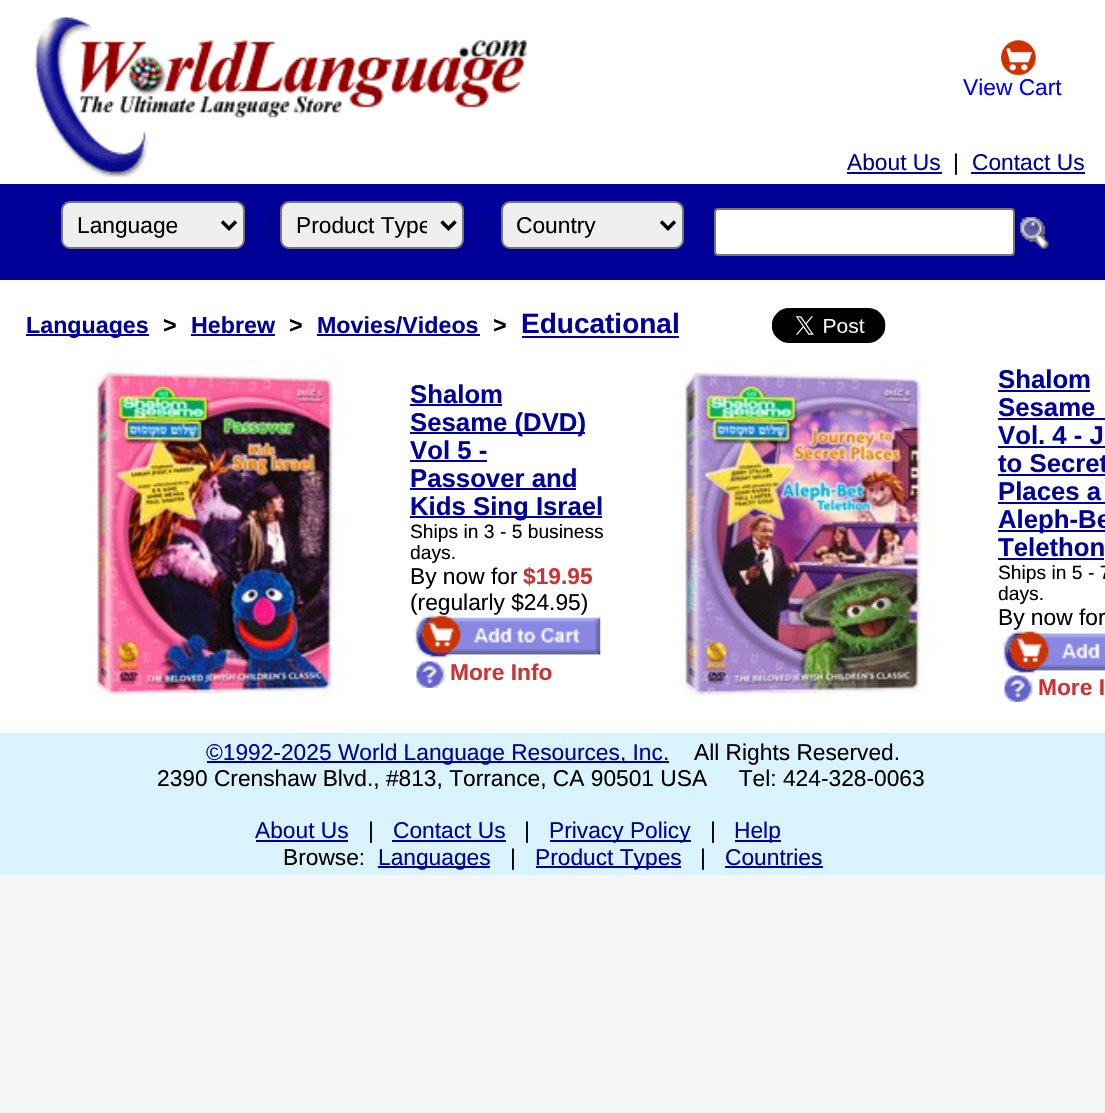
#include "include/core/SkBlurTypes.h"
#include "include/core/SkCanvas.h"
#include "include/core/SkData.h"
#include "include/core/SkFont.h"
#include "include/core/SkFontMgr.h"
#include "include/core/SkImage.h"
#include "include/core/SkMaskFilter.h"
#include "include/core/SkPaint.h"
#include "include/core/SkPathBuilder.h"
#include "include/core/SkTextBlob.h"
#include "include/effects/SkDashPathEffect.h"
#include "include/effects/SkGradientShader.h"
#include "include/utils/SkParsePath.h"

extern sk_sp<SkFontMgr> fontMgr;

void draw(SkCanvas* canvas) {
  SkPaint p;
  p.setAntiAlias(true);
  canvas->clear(SkColorSetRGB(245, 245, 245));
  p.setColor(SK_ColorWHITE);
  canvas->drawRect(SkRect::MakeLTRB(0, 0, 1105, 184), p);
  canvas->drawImageRect(SkImages::DeferredFromEncodedData(SkData::MakeFromFileName("images/1.png")), SkRect::MakeLTRB(35, 17, 527, 177), SkSamplingOptions());
  canvas->drawImageRect(SkImages::DeferredFromEncodedData(SkData::MakeFromFileName("images/2.png")), SkRect::MakeLTRB(1001, 40, 1036, 76), SkSamplingOptions());
  p.setColor(SkColorSetRGB(0, 0, 156));
  canvas->drawRect(SkRect::MakeLTRB(847, 172, 942, 174), p);
  canvas->drawRect(SkRect::MakeLTRB(971, 172, 1085, 174), p);
  p.setColor(SkColorSetRGB(0, 0, 153));
  canvas->drawRect(SkRect::MakeLTRB(0, 184, 1105, 280), p);
  p.setColor(SkColorSetRGB(239, 239, 239));
  canvas->drawRoundRect(SkRect::MakeLTRB(62, 202, 244, 248), 8, 8, p);
  p.setStyle(SkPaint::kStroke_Style);
  p.setStrokeWidth(2);
  p.setColor(SkColorSetRGB(118, 118, 118));
  canvas->drawRoundRect(SkRect::MakeLTRB(62, 202, 244, 248), 8, 8, p);
  p.setStrokeWidth(3.5f);
  p.setColor(SK_ColorBLACK);
  canvas->drawPath(SkPathBuilder().moveTo(222, 221.5f).lineTo(229, 228.5f).lineTo(236, 221.5f).detach(), p);
  p.setStyle(SkPaint::kFill_Style);
  p.setColor(SkColorSetRGB(239, 239, 239));
  canvas->drawRoundRect(SkRect::MakeLTRB(281, 202, 463, 248), 8, 8, p);
  p.setStyle(SkPaint::kStroke_Style);
  p.setStrokeWidth(2);
  p.setColor(SkColorSetRGB(118, 118, 118));
  canvas->drawRoundRect(SkRect::MakeLTRB(281, 202, 463, 248), 8, 8, p);
  p.setStrokeWidth(3.5f);
  p.setColor(SK_ColorBLACK);
  canvas->drawPath(SkPathBuilder().moveTo(441.5f, 221.5f).lineTo(448.5f, 228.5f).lineTo(455.5f, 221.5f).detach(), p);
  p.setStyle(SkPaint::kFill_Style);
  p.setColor(SkColorSetRGB(239, 239, 239));
  canvas->drawRoundRect(SkRect::MakeLTRB(502, 202, 683, 248), 8, 8, p);
  p.setStyle(SkPaint::kStroke_Style);
  p.setStrokeWidth(2);
  p.setColor(SkColorSetRGB(118, 118, 118));
  canvas->drawRoundRect(SkRect::MakeLTRB(502, 202, 683, 248), 8, 8, p);
  p.setStrokeWidth(3.5f);
  p.setColor(SK_ColorBLACK);
  canvas->drawPath(SkPathBuilder().moveTo(661, 221.5f).lineTo(668, 228.5f).lineTo(675, 221.5f).detach(), p);
  p.setStyle(SkPaint::kFill_Style);
  p.setColor(SK_ColorWHITE);
  canvas->drawRoundRect(SkRect::MakeLTRB(715, 209, 1014, 255), 3, 3, p);
  p.setStyle(SkPaint::kStroke_Style);
  p.setStrokeWidth(2);
  p.setColor(SkColorSetRGB(118, 118, 118));
  canvas->drawRoundRect(SkRect::MakeLTRB(715, 209, 1014, 255), 3, 3, p);
  canvas->drawImageRect(SkImages::DeferredFromEncodedData(SkData::MakeFromFileName("images/3.png")), SkRect::MakeLTRB(1020, 217, 1049, 249), SkSamplingOptions());
  p.setStyle(SkPaint::kFill_Style);
  p.setColor(SK_ColorWHITE);
  canvas->drawRect(SkRect::MakeLTRB(0, 280, 1105, 733), p);
  p.setColor(SkColorSetRGB(0, 0, 156));
  canvas->drawRect(SkRect::MakeLTRB(26, 334, 149, 336), p);
  canvas->drawRect(SkRect::MakeLTRB(191, 334, 275, 336), p);
  canvas->drawRect(SkRect::MakeLTRB(317, 334, 480, 336), p);
  canvas->drawRect(SkRect::MakeLTRB(522, 336, 679, 338), p);
  canvas->drawImageRect(SkImages::DeferredFromEncodedData(SkData::MakeFromFileName("images/4.png")), SkRect::MakeLTRB(771, 308, 886, 343), SkSamplingOptions());
  canvas->drawImageRect(SkImages::DeferredFromEncodedData(SkData::MakeFromFileName("images/5.png")), SkRect::MakeLTRB(94, 359, 347, 696), SkSamplingOptions());
  canvas->drawRect(SkRect::MakeLTRB(410, 404, 502, 406), p);
  canvas->drawRect(SkRect::MakeLTRB(410, 432, 585, 434), p);
  canvas->drawRect(SkRect::MakeLTRB(410, 460, 487, 462), p);
  canvas->drawRect(SkRect::MakeLTRB(410, 488, 576, 490), p);
  canvas->drawRect(SkRect::MakeLTRB(410, 516, 602, 518), p);
  canvas->drawImageRect(SkImages::DeferredFromEncodedData(SkData::MakeFromFileName("images/7.png")), SkRect::MakeLTRB(416, 661, 445, 688), SkSamplingOptions());
  canvas->drawImageRect(SkImages::DeferredFromEncodedData(SkData::MakeFromFileName("images/8.png")), SkRect::MakeLTRB(682, 361, 934, 696), SkSamplingOptions());
  canvas->drawRect(SkRect::MakeLTRB(998, 390, 1090, 392), p);
  canvas->drawRect(SkRect::MakeLTRB(998, 418, 1105, 420), p);
  canvas->drawRect(SkRect::MakeLTRB(998, 446, 1105, 448), p);
  canvas->drawRect(SkRect::MakeLTRB(998, 474, 1105, 476), p);
  canvas->drawRect(SkRect::MakeLTRB(998, 502, 1105, 504), p);
  canvas->drawRect(SkRect::MakeLTRB(998, 530, 1105, 532), p);
  canvas->drawRect(SkRect::MakeLTRB(998, 558, 1104, 560), p);
  canvas->drawImageRect(SkImages::DeferredFromEncodedData(SkData::MakeFromFileName("images/9.png")), SkRect::MakeLTRB(1002, 630, 1105, 674), SkSamplingOptions());
  canvas->drawImageRect(SkImages::DeferredFromEncodedData(SkData::MakeFromFileName("images/10.png")), SkRect::MakeLTRB(1004, 675, 1033, 702), SkSamplingOptions());
  p.setColor(SkColorSetRGB(217, 243, 255));
  canvas->drawRect(SkRect::MakeLTRB(0, 733, 1105, 875), p);
  p.setColor(SkColorSetRGB(0, 0, 156));
  canvas->drawRect(SkRect::MakeLTRB(207, 761, 669, 763), p);
  canvas->drawRect(SkRect::MakeLTRB(256, 840, 348, 842), p);
  canvas->drawRect(SkRect::MakeLTRB(392, 840, 506, 842), p);
  canvas->drawRect(SkRect::MakeLTRB(550, 840, 691, 842), p);
  canvas->drawRect(SkRect::MakeLTRB(735, 840, 781, 842), p);
  canvas->drawRect(SkRect::MakeLTRB(378, 866, 490, 868), p);
  canvas->drawRect(SkRect::MakeLTRB(536, 866, 681, 868), p);
  canvas->drawRect(SkRect::MakeLTRB(725, 866, 823, 868), p);
  SkFont font1(fontMgr->matchFamilyStyle("Liberation Sans", SkFontStyle::Normal()), 22.75f);
  font1.setSubpixel(true);
  p.setColor(SkColorSetRGB(0, 0, 255));
  canvas->drawString("View Cart", 963, 95, font1, p);
  p.setColor(SkColorSetRGB(0, 0, 156));
  canvas->drawString("About Us", 847, 170, font1, p);
  p.setColor(SK_ColorBLACK);
  canvas->drawString("|", 953, 170, font1, p);
  p.setColor(SkColorSetRGB(0, 0, 156));
  canvas->drawString("Contact Us", 972, 170, font1, p);
  p.setColor(SK_ColorBLACK);
  canvas->drawString(":", 48, 233, font1, p);
  canvas->drawString("Language", 77, 233, font1, p);
  canvas->drawString(":", 268, 233, font1, p);
  canvas->save();
  canvas->clipRect(SkRect::MakeLTRB(296, 210, 427, 240));
  canvas->drawString("Product Type", 296, 233, font1, p);
  canvas->restore();
  canvas->drawString(":", 487, 233, font1, p);
  canvas->drawString("Country", 516, 233, font1, p);
  SkFont font2(fontMgr->matchFamilyStyle("Liberation Sans", SkFontStyle::Bold()), 23.25f);
  font2.setSubpixel(true);
  p.setColor(SkColorSetRGB(0, 0, 156));
  canvas->drawString("Languages", 26, 333, font2, p);
  p.setColor(SK_ColorBLACK);
  canvas->drawString(">", 163, 333, font2, p);
  p.setColor(SkColorSetRGB(0, 0, 156));
  canvas->drawString("Hebrew", 191, 333, font2, p);
  p.setColor(SK_ColorBLACK);
  canvas->drawString(">", 289, 333, font2, p);
  p.setColor(SkColorSetRGB(0, 0, 156));
  canvas->drawString("Movies/Videos", 317, 333, font2, p);
  p.setColor(SK_ColorBLACK);
  canvas->drawString(">", 493, 333, font2, p);
  SkFont font3(fontMgr->matchFamilyStyle("Liberation Sans", SkFontStyle::Bold()), 28);
  font3.setSubpixel(true);
  p.setColor(SkColorSetRGB(0, 0, 156));
  canvas->drawString("Educational", 521, 333, font3, p);
  SkFont font4(fontMgr->matchFamilyStyle("Liberation Sans", SkFontStyle::Bold()), 25.75f);
  font4.setSubpixel(true);
  canvas->drawString("Shalom", 410, 403, font4, p);
  canvas->drawString("Sesame (DVD)", 410, 431, font4, p);
  canvas->drawString("Vol 5 -", 410, 459, font4, p);
  canvas->drawString("Passover and", 410, 487, font4, p);
  canvas->drawString("Kids Sing Israel", 410, 515, font4, p);
  SkFont font5(fontMgr->matchFamilyStyle("Liberation Sans", SkFontStyle::Normal()), 19.25f);
  font5.setSubpixel(true);
  p.setColor(SK_ColorBLACK);
  canvas->drawString("Ships in 3 - 5 business", 410, 538, font5, p);
  canvas->drawString("days.", 410, 559, font5, p);
  canvas->drawString("By now for", 410, 584, font1, p);
  SkFont font6(fontMgr->matchFamilyStyle("Liberation Sans", SkFontStyle::Bold()), 22.75f);
  font6.setSubpixel(true);
  p.setColor(SkColorSetRGB(204, 51, 51));
  canvas->drawString("$19.95", 523, 584, font6, p);
  p.setColor(SK_ColorBLACK);
  canvas->drawString("(regularly $24.95)", 410, 610, font1, p);
  canvas->drawImageRect(SkImages::DeferredFromEncodedData(SkData::MakeFromFileName("images/6.png")), SkRect::MakeLTRB(414, 614, 601, 658), SkSamplingOptions());
  p.setColor(SkColorSetRGB(204, 51, 51));
  canvas->drawString("More Info", 450, 680, font6, p);
  p.setColor(SkColorSetRGB(0, 0, 156));
  canvas->drawString("Shalom", 998, 388, font4, p);
  canvas->drawString("Sesame", 998, 416, font4, p);
  canvas->drawString("Vol. 4 - J", 998, 444, font4, p);
  canvas->drawString("to Secret", 998, 472, font4, p);
  canvas->drawString("Places a", 998, 500, font4, p);
  canvas->drawString("Aleph-Be", 998, 528, font4, p);
  canvas->drawString("Telethon", 998, 556, font4, p);
  p.setColor(SK_ColorBLACK);
  canvas->drawString("Ships in 5 - 7", 998, 579, font5, p);
  canvas->drawString("days.", 998, 600, font5, p);
  canvas->drawString("By now for", 998, 625, font1, p);
  p.setColor(SkColorSetRGB(204, 51, 51));
  canvas->drawString("More I", 1038, 695, font6, p);
  p.setColor(SkColorSetRGB(0, 0, 156));
  canvas->drawString("©1992-2025 World Language Resources, Inc.", 206, 760, font1, p);
  p.setColor(SK_ColorBLACK);
  canvas->drawString("All Rights Reserved.", 694, 760, font1, p);
  canvas->drawString("2390 Crenshaw Blvd., #813, Torrance, CA 90501 USA     Tel: 424-328-0063", 157, 786, font1, p);
  p.setColor(SkColorSetRGB(0, 0, 156));
  canvas->drawString("About Us", 255, 838, font1, p);
  p.setColor(SK_ColorBLACK);
  canvas->drawString("|", 368, 838, font1, p);
  p.setColor(SkColorSetRGB(0, 0, 156));
  canvas->drawString("Contact Us", 393, 838, font1, p);
  p.setColor(SK_ColorBLACK);
  canvas->drawString("|", 524, 838, font1, p);
  p.setColor(SkColorSetRGB(0, 0, 156));
  canvas->drawString("Privacy Policy", 549, 838, font1, p);
  p.setColor(SK_ColorBLACK);
  canvas->drawString("|", 710, 838, font1, p);
  p.setColor(SkColorSetRGB(0, 0, 156));
  canvas->drawString("Help", 734, 838, font1, p);
  p.setColor(SK_ColorBLACK);
  canvas->drawString("Browse:", 283, 865, font1, p);
  p.setColor(SkColorSetRGB(0, 0, 156));
  canvas->drawString("Languages", 378, 865, font1, p);
  p.setColor(SK_ColorBLACK);
  canvas->drawString("|", 510, 865, font1, p);
  p.setColor(SkColorSetRGB(0, 0, 156));
  canvas->drawString("Product Types", 535, 865, font1, p);
  p.setColor(SK_ColorBLACK);
  canvas->drawString("|", 700, 865, font1, p);
  p.setColor(SkColorSetRGB(0, 0, 156));
  canvas->drawString("Countries", 725, 865, font1, p);
}
